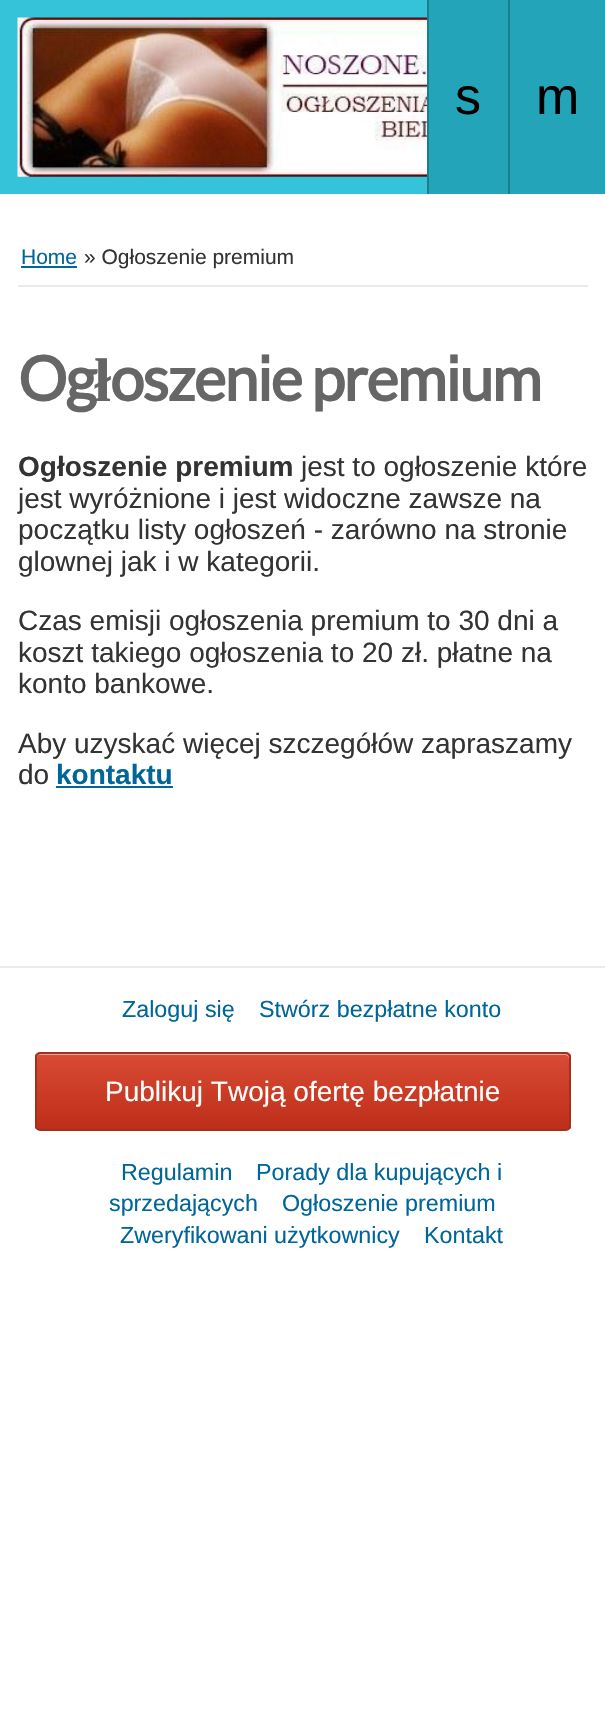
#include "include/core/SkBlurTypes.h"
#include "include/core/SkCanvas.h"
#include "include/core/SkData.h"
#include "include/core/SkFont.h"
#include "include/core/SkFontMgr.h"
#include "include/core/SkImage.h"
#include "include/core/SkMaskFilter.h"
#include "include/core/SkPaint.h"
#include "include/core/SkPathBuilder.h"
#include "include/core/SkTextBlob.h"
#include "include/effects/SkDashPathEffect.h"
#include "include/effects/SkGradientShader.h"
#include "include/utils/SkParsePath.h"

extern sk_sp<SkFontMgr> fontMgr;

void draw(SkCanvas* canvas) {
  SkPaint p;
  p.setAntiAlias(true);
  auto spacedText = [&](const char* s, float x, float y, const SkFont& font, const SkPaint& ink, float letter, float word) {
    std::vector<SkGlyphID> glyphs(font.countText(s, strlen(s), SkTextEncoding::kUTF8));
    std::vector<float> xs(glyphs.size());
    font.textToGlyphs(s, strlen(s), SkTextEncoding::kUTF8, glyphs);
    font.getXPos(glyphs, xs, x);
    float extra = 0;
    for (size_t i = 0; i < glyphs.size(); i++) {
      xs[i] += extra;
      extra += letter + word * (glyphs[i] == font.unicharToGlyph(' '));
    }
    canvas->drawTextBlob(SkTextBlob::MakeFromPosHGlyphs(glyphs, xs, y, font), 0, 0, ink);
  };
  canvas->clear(SK_ColorWHITE);
  p.setColor(SkColorSetRGB(53, 195, 217));
  canvas->drawRect(SkRect::MakeLTRB(0, 0, 427, 194), p);
  canvas->drawImageRect(SkImages::DeferredFromEncodedData(SkData::MakeFromFileName("images/1.png")), SkRect::MakeLTRB(17, 17, 427, 177), SkSamplingOptions());
  p.setColor(SkColorSetRGB(35, 164, 184));
  canvas->drawRect(SkRect::MakeLTRB(429, 0, 508, 194), p);
  p.setColor(SkColorSetRGB(27, 126, 141));
  canvas->drawRect(SkRect::MakeLTRB(427, 0, 429, 194), p);
  p.setColor(SkColorSetRGB(35, 164, 184));
  canvas->drawRect(SkRect::MakeLTRB(510, 0, 605, 194), p);
  p.setColor(SkColorSetRGB(27, 126, 141));
  canvas->drawRect(SkRect::MakeLTRB(508, 0, 510, 194), p);
  p.setColor(SkColorSetRGB(234, 234, 234));
  canvas->drawRect(SkRect::MakeLTRB(18, 285, 588, 287), p);
  p.setColor(SkColorSetRGB(0, 102, 153));
  canvas->drawRect(SkRect::MakeLTRB(21, 266, 77, 268), p);
  canvas->drawRect(SkRect::MakeLTRB(56, 786, 173, 788), p);
  p.setColor(SkColorSetRGB(234, 234, 234));
  canvas->drawRect(SkRect::MakeLTRB(0, 966, 605, 968), p);
  canvas->save();
  canvas->clipPath(SkPathBuilder().moveTo(40, 1052).lineTo(566, 1052).cubicTo(569, 1052, 571, 1054, 571, 1057).lineTo(571, 1126).cubicTo(571, 1129, 569, 1131, 566, 1131).lineTo(40, 1131).cubicTo(37, 1131, 35, 1129, 35, 1126).lineTo(35, 1057).cubicTo(35, 1054, 37, 1052, 40, 1052).close().detach(), true);
  {
    const SkColor colors[] = {SkColorSetRGB(217, 75, 53), SkColorSetRGB(190, 46, 24)};
    const float stops[] = {0, 1};
    const SkPoint ends[] = {{303, 1054}, {303, 1129}};
    p.setShader(SkGradientShader::MakeLinear(ends, colors, stops, 2, SkTileMode::kClamp));
    p.setAlpha(255);
  }
  canvas->drawRect(SkRect::MakeLTRB(35, 1054, 571, 1129), p);
  canvas->restore();
  p.setShader(nullptr);
  p.setColor(SkColorSetRGB(237, 171, 160));
  canvas->drawPath(SkPathBuilder().moveTo(40, 1055).lineTo(565, 1055).cubicTo(567, 1055, 569, 1057, 569, 1059).lineTo(569, 1058).cubicTo(569, 1056, 567, 1054, 565, 1054).lineTo(41, 1054).cubicTo(39, 1054, 37, 1056, 37, 1058).lineTo(37, 1059).cubicTo(37, 1057, 38, 1055, 40, 1055).close().detach(), p);
  p.setStyle(SkPaint::kStroke_Style);
  p.setStrokeWidth(2);
  p.setColor(SkColorSetRGB(163, 48, 31));
  canvas->drawRoundRect(SkRect::MakeLTRB(36, 1053, 570, 1130), 4, 4, p);
  SkFont font1(fontMgr->matchFamilyStyle("Liberation Sans", SkFontStyle::Normal()), 52);
  font1.setSubpixel(true);
  p.setStyle(SkPaint::kFill_Style);
  p.setColor(SK_ColorBLACK);
  canvas->drawString("s", 455, 114, font1, p);
  canvas->drawString("m", 536, 114, font1, p);
  SkFont font2(fontMgr->matchFamilyStyle("Liberation Sans", SkFontStyle::Normal()), 21);
  font2.setSubpixel(true);
  p.setColor(SkColorSetRGB(0, 102, 153));
  canvas->drawString("Home", 21, 264, font2, p);
  p.setColor(SkColorSetRGB(51, 51, 51));
  canvas->drawString("» Ogłoszenie premium", 84, 264, font2, p);
  SkFont font3(fontMgr->matchFamilyStyle("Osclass", SkFontStyle::Bold()), 61.5f);
  font3.setSubpixel(true);
  p.setColor(SkColorSetRGB(102, 102, 102));
  spacedText("Og", 18, 401, font3, p, -1.8f, 0);
  SkFont font4(fontMgr->matchFamilyStyle("Liberation Serif", SkFontStyle::Bold()), 61.5f);
  font4.setSubpixel(true);
  spacedText("ł", 94, 401, font4, p, -1.8f, 0);
  spacedText("oszenie premium", 110, 401, font3, p, -1.8f, 0);
  SkFont font5(fontMgr->matchFamilyStyle("Liberation Sans", SkFontStyle::Bold()), 28);
  font5.setSubpixel(true);
  p.setColor(SkColorSetRGB(51, 51, 51));
  canvas->drawString("Ogłoszenie premium", 18, 476, font5, p);
  SkFont font6(fontMgr->matchFamilyStyle("Liberation Sans", SkFontStyle::Normal()), 28);
  font6.setSubpixel(true);
  canvas->drawString("jest to ogłoszenie które", 301, 476, font6, p);
  canvas->drawString("jest wyróżnione i jest widoczne zawsze na", 18, 508, font6, p);
  canvas->drawString("początku listy ogłoszeń - zarówno na stronie", 18, 539, font6, p);
  canvas->drawString("glownej jak i w kategorii.", 18, 571, font6, p);
  canvas->drawString("Czas emisji ogłoszenia premium to 30 dni a", 18, 630, font6, p);
  canvas->drawString("koszt takiego ogłoszenia to 20 zł. płatne na", 18, 662, font6, p);
  canvas->drawString("konto bankowe.", 18, 693, font6, p);
  canvas->drawString("Aby uzyskać więcej szczegółów zapraszamy", 18, 753, font6, p);
  canvas->drawString("do", 18, 784, font6, p);
  p.setColor(SkColorSetRGB(0, 102, 153));
  canvas->drawString("kontaktu", 56, 784, font5, p);
  SkFont font7(fontMgr->matchFamilyStyle("Liberation Sans", SkFontStyle::Normal()), 23.3f);
  font7.setSubpixel(true);
  canvas->drawString("Zaloguj się", 122, 1017, font7, p);
  canvas->drawString("Stwórz bezpłatne konto", 259, 1017, font7, p);
  p.setColor(SK_ColorWHITE);
  canvas->drawString("Publikuj Twoją ofertę bezpłatnie", 105, 1101, font6, p);
  p.setColor(SkColorSetRGB(0, 102, 153));
  canvas->drawString("Regulamin", 121, 1180, font7, p);
  canvas->drawString("Porady dla kupujących i", 256, 1180, font7, p);
  canvas->drawString("sprzedających", 109, 1211, font7, p);
  canvas->drawString("Ogłoszenie premium", 282, 1211, font7, p);
  canvas->drawString("Zweryfikowani użytkownicy", 120, 1243, font7, p);
  canvas->drawString("Kontakt", 424, 1243, font7, p);
}
